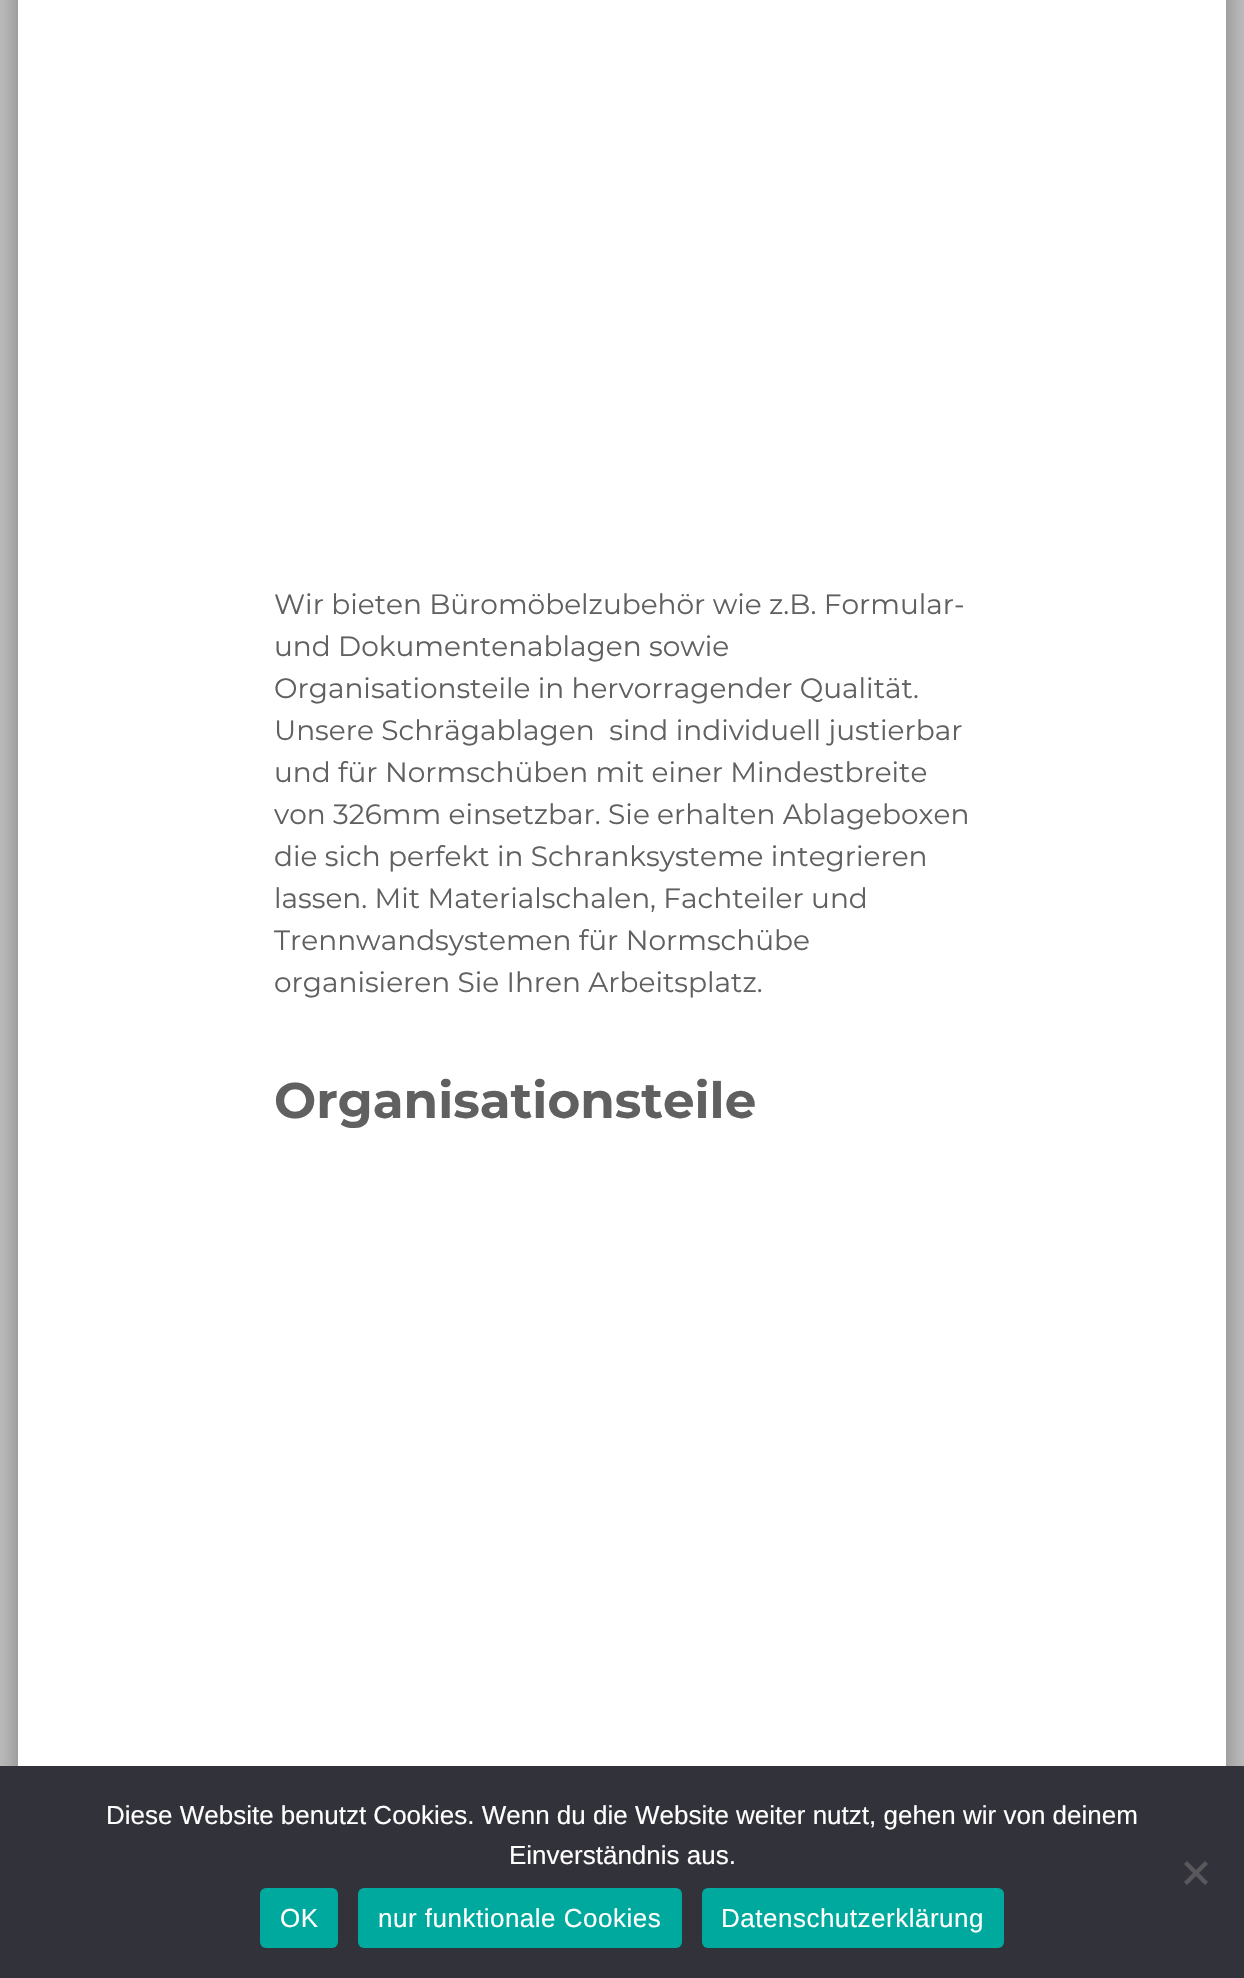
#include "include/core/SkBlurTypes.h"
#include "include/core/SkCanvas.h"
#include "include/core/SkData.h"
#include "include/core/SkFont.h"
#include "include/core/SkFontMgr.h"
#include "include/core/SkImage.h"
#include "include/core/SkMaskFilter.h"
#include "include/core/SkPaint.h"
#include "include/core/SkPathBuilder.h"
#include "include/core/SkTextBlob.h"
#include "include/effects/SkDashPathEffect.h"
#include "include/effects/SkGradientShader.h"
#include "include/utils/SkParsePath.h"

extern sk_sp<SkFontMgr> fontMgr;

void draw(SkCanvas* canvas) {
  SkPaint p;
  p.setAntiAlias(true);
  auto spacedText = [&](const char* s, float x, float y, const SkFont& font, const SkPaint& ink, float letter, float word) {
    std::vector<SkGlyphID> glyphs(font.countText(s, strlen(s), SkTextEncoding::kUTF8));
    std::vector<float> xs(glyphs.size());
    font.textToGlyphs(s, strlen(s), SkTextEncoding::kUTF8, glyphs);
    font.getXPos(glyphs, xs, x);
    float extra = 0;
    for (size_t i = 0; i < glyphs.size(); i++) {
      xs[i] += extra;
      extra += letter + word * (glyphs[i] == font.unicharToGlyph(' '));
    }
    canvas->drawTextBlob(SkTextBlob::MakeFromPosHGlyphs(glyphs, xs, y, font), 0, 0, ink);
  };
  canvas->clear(SkColorSetRGB(191, 191, 191));
  p.setColor(SkColorSetARGB(77, 0, 0, 0));
  p.setMaskFilter(SkMaskFilter::MakeBlur(kNormal_SkBlurStyle, 12));
  canvas->drawRect(SkRect::MakeLTRB(16, -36, 1228, 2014), p);
  p.setMaskFilter(nullptr);
  p.setColor(SK_ColorWHITE);
  canvas->drawRect(SkRect::MakeLTRB(18, 0, 1226, 1766), p);
  p.setColor(SkColorSetRGB(50, 50, 58));
  canvas->drawRect(SkRect::MakeLTRB(0, 1766, 1244, 1978), p);
  p.setColor(SkColorSetRGB(89, 89, 93));
  canvas->drawPath(SkPathBuilder().moveTo(1205, 1861).lineTo(1208, 1864).lineTo(1187, 1885).lineTo(1184, 1882).close().detach(), p);
  canvas->drawPath(SkPathBuilder().moveTo(1184, 1864).lineTo(1187, 1861).lineTo(1208, 1882).lineTo(1205, 1885).close().detach(), p);
  p.setColor(SkColorSetRGB(0, 169, 157));
  canvas->drawRoundRect(SkRect::MakeLTRB(260, 1888, 338, 1948), 6, 6, p);
  canvas->drawRoundRect(SkRect::MakeLTRB(358, 1888, 682, 1948), 6, 6, p);
  canvas->drawRoundRect(SkRect::MakeLTRB(702, 1888, 1004, 1948), 6, 6, p);
  SkFont font1(fontMgr->matchFamilyStyle("Montserrat", SkFontStyle::Normal()), 28);
  font1.setSubpixel(true);
  p.setColor(SkColorSetRGB(96, 96, 96));
  canvas->drawString("Wir bieten Büromöbelzubehör wie z.B. Formular-", 274, 614, font1, p);
  canvas->drawString("und Dokumentenablagen sowie", 274, 656, font1, p);
  canvas->drawString("Organisationsteile in hervorragender Qualität.", 274, 698, font1, p);
  canvas->drawString("Unsere Schrägablagen  sind individuell justierbar", 274, 740, font1, p);
  canvas->drawString("und für Normschüben mit einer Mindestbreite", 274, 782, font1, p);
  canvas->drawString("von 326mm einsetzbar. Sie erhalten Ablageboxen", 274, 824, font1, p);
  canvas->drawString("die sich perfekt in Schranksysteme integrieren", 274, 866, font1, p);
  canvas->drawString("lassen. Mit Materialschalen, Fachteiler und", 274, 908, font1, p);
  canvas->drawString("Trennwandsystemen für Normschübe", 274, 950, font1, p);
  canvas->drawString("organisieren Sie Ihren Arbeitsplatz.", 274, 992, font1, p);
  SkFont font2(fontMgr->matchFamilyStyle("Montserrat", SkFontStyle::Bold()), 50);
  font2.setSubpixel(true);
  canvas->drawString("Organisationsteile", 274, 1118, font2, p);
  SkFont font3(fontMgr->matchFamilyStyle("Liberation Sans", SkFontStyle::Normal()), 26);
  font3.setSubpixel(true);
  p.setColor(SK_ColorWHITE);
  canvas->drawString("Diese Website benutzt Cookies. Wenn du die Website weiter nutzt, gehen wir von deinem", 106, 1824, font3, p);
  canvas->drawString("Einverständnis aus.", 509, 1864, font3, p);
  spacedText("OK", 280, 1927, font3, p, 0.5f, 0);
  spacedText("nur funktionale Cookies", 378, 1927, font3, p, 0.5f, 0);
  spacedText("Datenschutzerklärung", 721, 1927, font3, p, 0.5f, 0);
}
